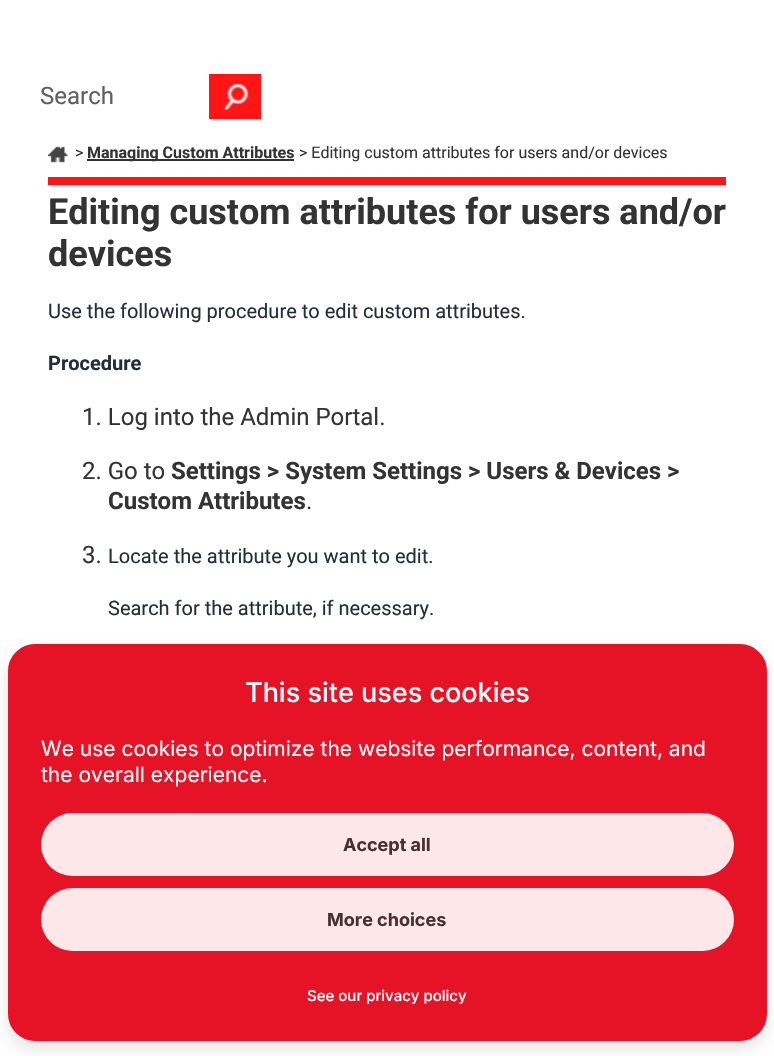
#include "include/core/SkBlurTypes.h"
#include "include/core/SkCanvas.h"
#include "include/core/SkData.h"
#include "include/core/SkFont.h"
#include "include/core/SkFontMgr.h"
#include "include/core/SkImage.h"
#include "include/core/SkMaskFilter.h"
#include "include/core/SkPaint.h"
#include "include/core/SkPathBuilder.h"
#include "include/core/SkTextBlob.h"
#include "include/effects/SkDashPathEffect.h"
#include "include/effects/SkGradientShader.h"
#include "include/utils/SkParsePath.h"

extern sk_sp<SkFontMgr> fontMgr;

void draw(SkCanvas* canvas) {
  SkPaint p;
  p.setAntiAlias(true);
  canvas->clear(SK_ColorWHITE);
  p.setColor(SkColorSetRGB(255, 21, 21));
  canvas->drawRect(SkRect::MakeLTRB(209, 74, 261, 119), p);
  canvas->drawImageRect(SkImages::DeferredFromEncodedData(SkData::MakeFromFileName("images/1.png")), SkRect::MakeLTRB(224, 83, 249, 110), SkSamplingOptions());
  canvas->drawRect(SkRect::MakeLTRB(48, 177, 726, 185), p);
  canvas->drawImageRect(SkImages::DeferredFromEncodedData(SkData::MakeFromFileName("images/2.png")), SkRect::MakeLTRB(48, 146, 68, 163), SkSamplingOptions());
  p.setColor(SkColorSetRGB(51, 51, 51));
  canvas->drawRect(SkRect::MakeLTRB(87, 159, 294, 161), p);
  p.setColor(SkColorSetARGB(26, 0, 0, 0));
  p.setMaskFilter(SkMaskFilter::MakeBlur(kNormal_SkBlurStyle, 7.5f));
  canvas->drawRoundRect(SkRect::MakeLTRB(8, 651, 767, 1049), 27, 27, p);
  p.setMaskFilter(nullptr);
  p.setColor(SkColorSetRGB(230, 18, 38));
  canvas->drawRoundRect(SkRect::MakeLTRB(9, 645, 766, 1040), 26, 26, p);
  p.setStyle(SkPaint::kStroke_Style);
  p.setStrokeWidth(2);
  canvas->drawRoundRect(SkRect::MakeLTRB(9, 645, 766, 1040), 26, 26, p);
  p.setStyle(SkPaint::kFill_Style);
  p.setColor(SkColorSetRGB(253, 231, 233));
  canvas->drawRoundRect(SkRect::MakeLTRB(41, 813, 734, 876), 31.5f, 31.5f, p);
  canvas->drawRoundRect(SkRect::MakeLTRB(41, 888, 734, 951), 31.5f, 31.5f, p);
  SkFont font1(fontMgr->matchFamilyStyle("Roboto", SkFontStyle::Normal()), 24);
  font1.setSubpixel(true);
  p.setColor(SkColorSetRGB(95, 95, 95));
  canvas->drawString("Search", 40, 104, font1, p);
  SkFont font2(fontMgr->matchFamilyStyle("Roboto", SkFontStyle::Normal()), 16);
  font2.setSubpixel(true);
  p.setColor(SkColorSetRGB(51, 51, 51));
  canvas->drawString(">", 75, 158, font2, p);
  SkFont font3(fontMgr->matchFamilyStyle("Roboto", SkFontStyle::Bold()), 16);
  font3.setSubpixel(true);
  canvas->drawString("Managing Custom Attributes", 87, 158, font3, p);
  canvas->drawString("> Editing custom attributes for users and/or devices", 299, 158, font2, p);
  SkFont font4(fontMgr->matchFamilyStyle("Roboto", SkFontStyle::Bold()), 36);
  font4.setSubpixel(true);
  canvas->drawString("Editing custom attributes for users and/or", 48, 224, font4, p);
  canvas->drawString("devices", 48, 266, font4, p);
  SkFont font5(fontMgr->matchFamilyStyle("Roboto", SkFontStyle::Normal()), 20);
  font5.setSubpixel(true);
  p.setColor(SkColorSetRGB(37, 45, 59));
  canvas->drawString("Use the following procedure to edit custom attributes.", 48, 318, font5, p);
  SkFont font6(fontMgr->matchFamilyStyle("Roboto", SkFontStyle::Bold()), 20);
  font6.setSubpixel(true);
  canvas->drawString("Procedure", 48, 370, font6, p);
  p.setColor(SkColorSetRGB(51, 51, 51));
  canvas->drawString("1. Log into the Admin Portal.", 82, 425, font1, p);
  canvas->drawString("2. Go to", 82, 479, font1, p);
  SkFont font7(fontMgr->matchFamilyStyle("Roboto", SkFontStyle::Bold()), 24);
  font7.setSubpixel(true);
  canvas->drawString("Settings > System Settings > Users & Devices >", 171, 479, font7, p);
  canvas->drawString("Custom Attributes", 108, 509, font7, p);
  canvas->drawString(".", 306, 509, font1, p);
  canvas->drawString("3.", 82, 563, font1, p);
  p.setColor(SkColorSetRGB(37, 45, 59));
  canvas->drawString("Locate the attribute you want to edit.", 108, 563, font5, p);
  canvas->drawString("Search for the attribute, if necessary.", 108, 615, font5, p);
  SkFont font8(fontMgr->matchFamilyStyle("Inter", SkFontStyle(500, SkFontStyle::kNormal_Width, SkFontStyle::kUpright_Slant)), 27);
  font8.setSubpixel(true);
  p.setColor(SK_ColorWHITE);
  canvas->drawString("This site uses cookies", 245, 702, font8, p);
  SkFont font9(fontMgr->matchFamilyStyle("Inter", SkFontStyle::Normal()), 21);
  font9.setSubpixel(true);
  canvas->drawString("We use cookies to optimize the website performance, content, and", 41, 756, font9, p);
  canvas->drawString("the overall experience.", 41, 782, font9, p);
  SkFont font10(fontMgr->matchFamilyStyle("Inter", SkFontStyle::Bold()), 18);
  font10.setSubpixel(true);
  p.setColor(SkColorSetRGB(69, 48, 50));
  canvas->drawString("Accept all", 343, 851, font10, p);
  canvas->drawString("More choices", 327, 926, font10, p);
  SkFont font11(fontMgr->matchFamilyStyle("Inter", SkFontStyle(500, SkFontStyle::kNormal_Width, SkFontStyle::kUpright_Slant)), 15);
  font11.setSubpixel(true);
  p.setColor(SK_ColorWHITE);
  canvas->drawString("See our privacy policy", 307, 1001, font11, p);
}
